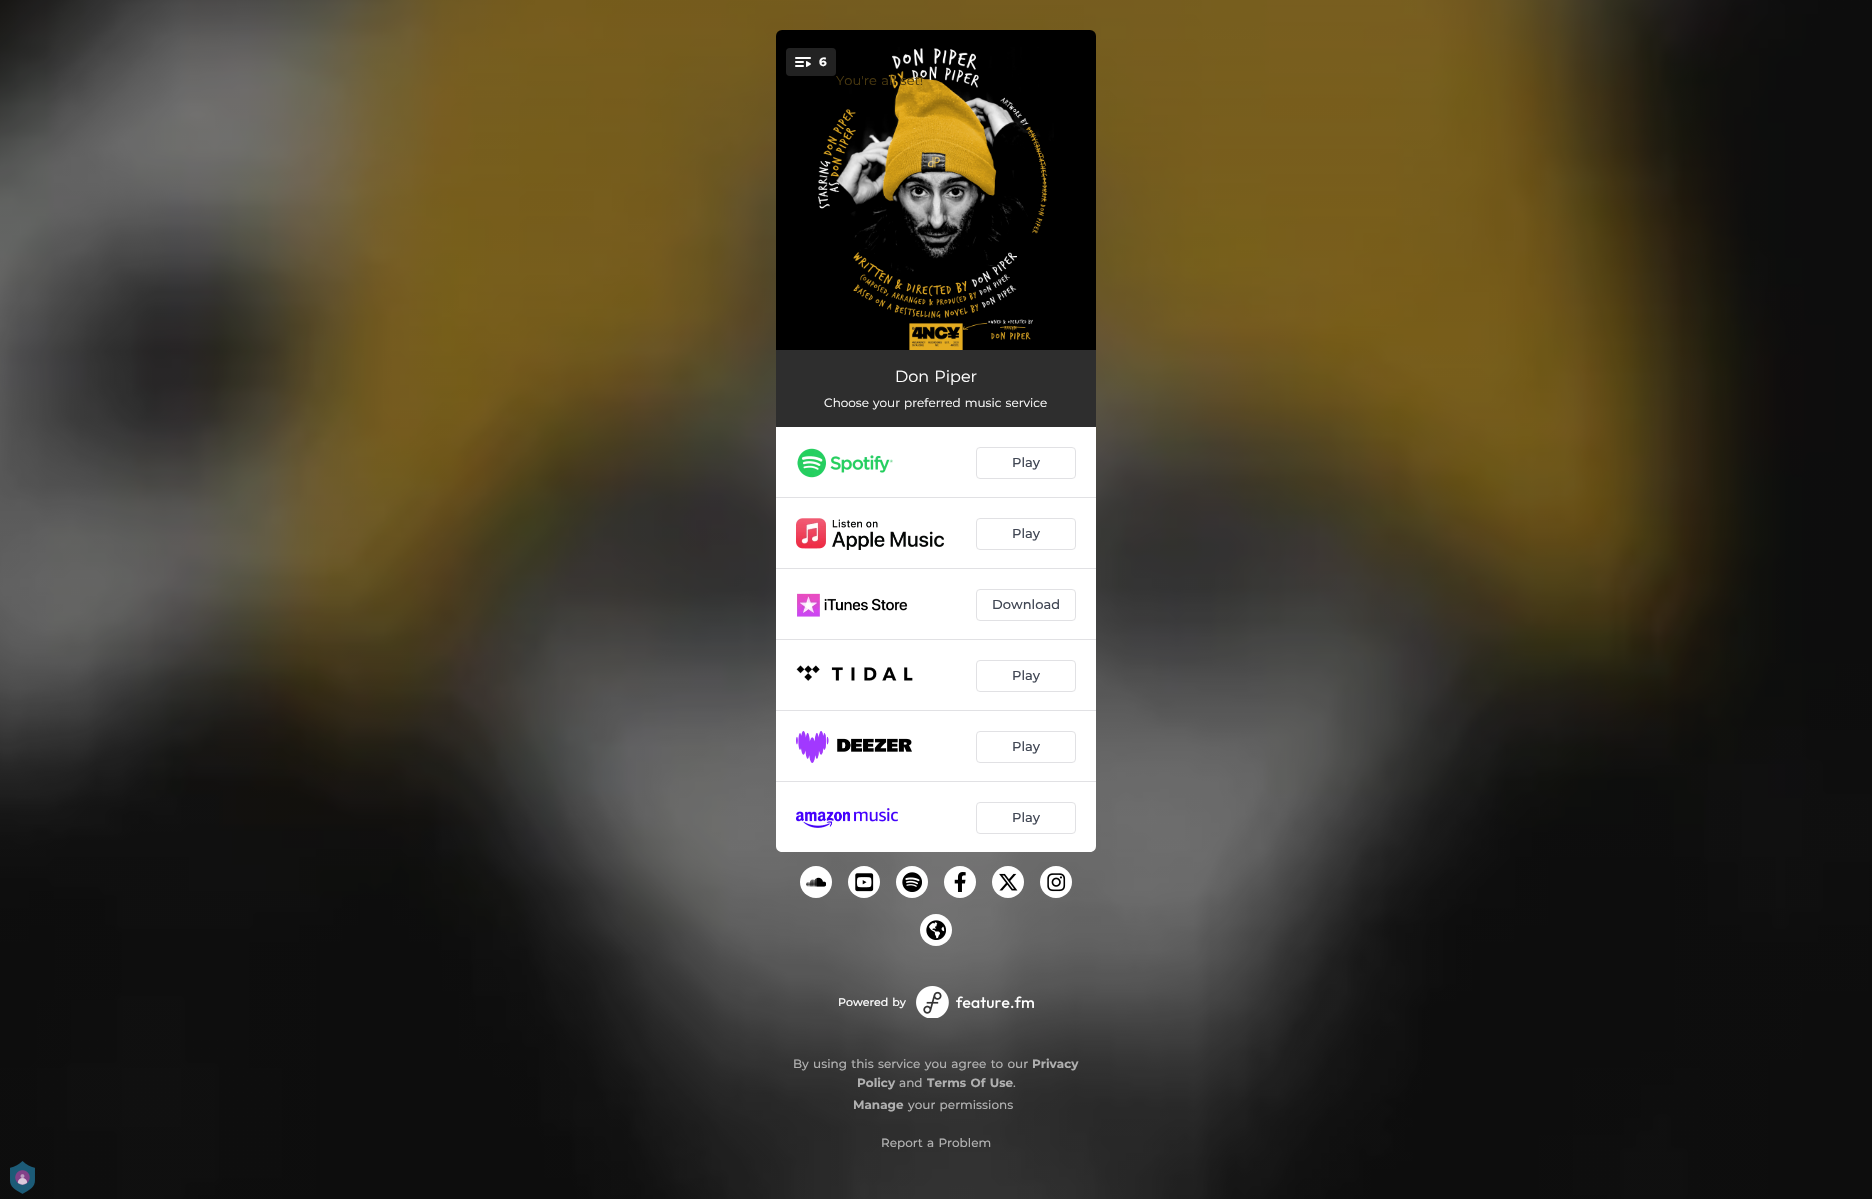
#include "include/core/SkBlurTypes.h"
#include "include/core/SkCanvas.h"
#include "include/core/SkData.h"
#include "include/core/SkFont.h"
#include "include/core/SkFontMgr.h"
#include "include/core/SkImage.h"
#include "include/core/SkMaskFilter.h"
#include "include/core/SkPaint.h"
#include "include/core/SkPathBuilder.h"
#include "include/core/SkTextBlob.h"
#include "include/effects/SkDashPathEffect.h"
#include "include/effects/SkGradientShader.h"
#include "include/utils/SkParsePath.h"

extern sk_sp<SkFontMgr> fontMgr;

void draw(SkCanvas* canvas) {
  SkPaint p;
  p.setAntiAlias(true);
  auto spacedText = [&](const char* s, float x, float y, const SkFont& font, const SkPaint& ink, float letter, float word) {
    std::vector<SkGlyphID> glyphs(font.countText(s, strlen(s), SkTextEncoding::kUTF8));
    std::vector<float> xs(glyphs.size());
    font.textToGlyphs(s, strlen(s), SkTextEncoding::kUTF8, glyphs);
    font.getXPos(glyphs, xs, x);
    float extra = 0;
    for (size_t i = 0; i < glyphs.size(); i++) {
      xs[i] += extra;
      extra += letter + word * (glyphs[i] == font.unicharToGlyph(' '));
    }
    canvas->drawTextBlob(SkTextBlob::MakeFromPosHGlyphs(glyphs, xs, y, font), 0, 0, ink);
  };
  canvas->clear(SK_ColorWHITE);
  canvas->drawImageRect(SkImages::DeferredFromEncodedData(SkData::MakeFromFileName("images/1.png")), SkRect::MakeLTRB(0, 0, 1872, 1199), SkSamplingOptions());
  canvas->drawImageRect(SkImages::DeferredFromEncodedData(SkData::MakeFromFileName("images/2.png")), SkRect::MakeLTRB(776, 30, 1096, 350), SkSamplingOptions());
  p.setColor(SkColorSetRGB(34, 34, 34));
  canvas->drawRoundRect(SkRect::MakeLTRB(786, 48, 836, 76), 4, 4, p);
  canvas->drawImageRect(SkImages::DeferredFromEncodedData(SkData::MakeFromFileName("images/3.png")), SkRect::MakeLTRB(795, 57, 811, 67), SkSamplingOptions());
  p.setColor(SkColorSetRGB(46, 46, 46));
  canvas->drawRect(SkRect::MakeLTRB(776, 350, 1096, 427), p);
  p.setColor(SK_ColorWHITE);
  canvas->drawPath(SkPathBuilder().moveTo(776, 427).lineTo(1096, 427).lineTo(1096, 846).cubicTo(1096, 849.5f, 1093.5f, 852, 1090, 852).lineTo(782, 852).cubicTo(778.5f, 852, 776, 849.5f, 776, 846).close().detach(), p);
  p.setColor(SkColorSetRGB(225, 225, 228));
  canvas->drawRect(SkRect::MakeLTRB(776, 497, 1096, 498), p);
  canvas->drawImageRect(SkImages::DeferredFromEncodedData(SkData::MakeFromFileName("images/4.png")), SkRect::MakeLTRB(797, 448, 893, 478), SkSamplingOptions());
  p.setStyle(SkPaint::kStroke_Style);
  p.setStrokeWidth(1);
  canvas->drawRoundRect(SkRect::MakeLTRB(976.5f, 447.5f, 1075.5f, 478.5f), 3.5f, 3.5f, p);
  p.setStyle(SkPaint::kFill_Style);
  canvas->drawRect(SkRect::MakeLTRB(776, 568, 1096, 569), p);
  canvas->drawImageRect(SkImages::DeferredFromEncodedData(SkData::MakeFromFileName("images/5.png")), SkRect::MakeLTRB(796, 518, 944, 550), SkSamplingOptions());
  p.setStyle(SkPaint::kStroke_Style);
  canvas->drawRoundRect(SkRect::MakeLTRB(976.5f, 518.5f, 1075.5f, 549.5f), 3.5f, 3.5f, p);
  p.setStyle(SkPaint::kFill_Style);
  canvas->drawRect(SkRect::MakeLTRB(776, 639, 1096, 640), p);
  canvas->drawImageRect(SkImages::DeferredFromEncodedData(SkData::MakeFromFileName("images/6.png")), SkRect::MakeLTRB(797, 593, 908, 617), SkSamplingOptions());
  p.setStyle(SkPaint::kStroke_Style);
  canvas->drawRoundRect(SkRect::MakeLTRB(976.5f, 589.5f, 1075.5f, 620.5f), 3.5f, 3.5f, p);
  p.setStyle(SkPaint::kFill_Style);
  canvas->drawRect(SkRect::MakeLTRB(776, 710, 1096, 711), p);
  canvas->drawImageRect(SkImages::DeferredFromEncodedData(SkData::MakeFromFileName("images/7.png")), SkRect::MakeLTRB(796, 665, 913, 681), SkSamplingOptions());
  p.setStyle(SkPaint::kStroke_Style);
  canvas->drawRoundRect(SkRect::MakeLTRB(976.5f, 660.5f, 1075.5f, 691.5f), 3.5f, 3.5f, p);
  p.setStyle(SkPaint::kFill_Style);
  canvas->drawRect(SkRect::MakeLTRB(776, 781, 1096, 782), p);
  canvas->drawImageRect(SkImages::DeferredFromEncodedData(SkData::MakeFromFileName("images/8.png")), SkRect::MakeLTRB(796, 731, 912, 763), SkSamplingOptions());
  p.setStyle(SkPaint::kStroke_Style);
  canvas->drawRoundRect(SkRect::MakeLTRB(976.5f, 731.5f, 1075.5f, 762.5f), 3.5f, 3.5f, p);
  canvas->drawImageRect(SkImages::DeferredFromEncodedData(SkData::MakeFromFileName("images/9.png")), SkRect::MakeLTRB(796, 808, 898, 828), SkSamplingOptions());
  canvas->drawRoundRect(SkRect::MakeLTRB(976.5f, 802.5f, 1075.5f, 833.5f), 3.5f, 3.5f, p);
  p.setStyle(SkPaint::kFill_Style);
  p.setColor(SK_ColorWHITE);
  canvas->drawCircle(816, 882, 16, p);
  canvas->drawImageRect(SkImages::DeferredFromEncodedData(SkData::MakeFromFileName("images/10.png")), SkRect::MakeLTRB(806, 877, 826, 887), SkSamplingOptions());
  canvas->drawCircle(864, 882, 16, p);
  canvas->drawImageRect(SkImages::DeferredFromEncodedData(SkData::MakeFromFileName("images/11.png")), SkRect::MakeLTRB(855, 873, 874, 892), SkSamplingOptions());
  canvas->drawCircle(912, 882, 16, p);
  canvas->drawImageRect(SkImages::DeferredFromEncodedData(SkData::MakeFromFileName("images/12.png")), SkRect::MakeLTRB(902, 872, 922, 892), SkSamplingOptions());
  canvas->drawCircle(960, 882, 16, p);
  canvas->drawImageRect(SkImages::DeferredFromEncodedData(SkData::MakeFromFileName("images/13.png")), SkRect::MakeLTRB(954, 872, 966, 892), SkSamplingOptions());
  canvas->drawCircle(1008, 882, 16, p);
  canvas->drawImageRect(SkImages::DeferredFromEncodedData(SkData::MakeFromFileName("images/14.png")), SkRect::MakeLTRB(999, 873, 1018, 891), SkSamplingOptions());
  canvas->drawCircle(1056, 882, 16, p);
  canvas->drawImageRect(SkImages::DeferredFromEncodedData(SkData::MakeFromFileName("images/15.png")), SkRect::MakeLTRB(1047, 873, 1066, 892), SkSamplingOptions());
  canvas->drawCircle(936, 930, 16, p);
  canvas->drawImageRect(SkImages::DeferredFromEncodedData(SkData::MakeFromFileName("images/16.png")), SkRect::MakeLTRB(926, 920, 946, 940), SkSamplingOptions());
  canvas->drawImageRect(SkImages::DeferredFromEncodedData(SkData::MakeFromFileName("images/17.png")), SkRect::MakeLTRB(916, 986, 1034, 1018), SkSamplingOptions());
  canvas->drawImageRect(SkImages::DeferredFromEncodedData(SkData::MakeFromFileName("images/18.png")), SkRect::MakeLTRB(10, 1161, 35, 1194), SkSamplingOptions());
  SkFont font1(fontMgr->matchFamilyStyle("Montserrat", SkFontStyle::Bold()), 12);
  font1.setSubpixel(true);
  canvas->drawString("6", 819, 66, font1, p);
  SkFont font2(fontMgr->matchFamilyStyle("Montserrat", SkFontStyle::Normal()), 13);
  font2.setSubpixel(true);
  p.setColor(SkColorSetRGB(74, 57, 15));
  spacedText("You're all set!", 836, 85, font2, p, 0, 1);
  SkFont font3(fontMgr->matchFamilyStyle("Montserrat", SkFontStyle::Normal()), 16);
  font3.setSubpixel(true);
  p.setColor(SK_ColorWHITE);
  spacedText("Don Piper", 895, 382, font3, p, 0, 1);
  SkFont font4(fontMgr->matchFamilyStyle("Montserrat", SkFontStyle::Normal()), 12);
  font4.setSubpixel(true);
  spacedText("Choose your preferred music service", 824, 407, font4, p, 0, 1);
  SkFont font5(fontMgr->matchFamilyStyle("Montserrat", SkFontStyle(500, SkFontStyle::kNormal_Width, SkFontStyle::kUpright_Slant)), 13);
  font5.setSubpixel(true);
  p.setColor(SkColorSetRGB(65, 71, 84));
  canvas->drawString("Play", 1012, 467, font5, p);
  canvas->drawString("Play", 1012, 538, font5, p);
  canvas->drawString("Download", 992, 609, font5, p);
  canvas->drawString("Play", 1012, 680, font5, p);
  canvas->drawString("Play", 1012, 751, font5, p);
  canvas->drawString("Play", 1012, 822, font5, p);
  SkFont font6(fontMgr->matchFamilyStyle("Montserrat", SkFontStyle(500, SkFontStyle::kNormal_Width, SkFontStyle::kUpright_Slant)), 11);
  font6.setSubpixel(true);
  p.setColor(SK_ColorWHITE);
  spacedText("Powered by", 838, 1006, font6, p, 0, 1);
  SkFont font7(fontMgr->matchFamilyStyle("Montserrat", SkFontStyle(500, SkFontStyle::kNormal_Width, SkFontStyle::kUpright_Slant)), 12);
  font7.setSubpixel(true);
  p.setColor(SkColorSetRGB(176, 176, 176));
  spacedText("By using this service you agree to our", 793, 1068, font7, p, 0, 1);
  canvas->drawString("Privacy", 1032, 1068, font1, p);
  canvas->drawString("Policy", 857, 1087, font1, p);
  canvas->drawString("and", 899, 1087, font7, p);
  spacedText("Terms Of Use", 927, 1087, font1, p, 0, 1);
  canvas->drawString(".", 1013, 1087, font7, p);
  canvas->drawString("Manage", 853, 1109, font1, p);
  spacedText("your permissions", 908, 1109, font7, p, 0, 1);
  spacedText("Report a Problem", 881, 1147, font7, p, 0, 1);
}
